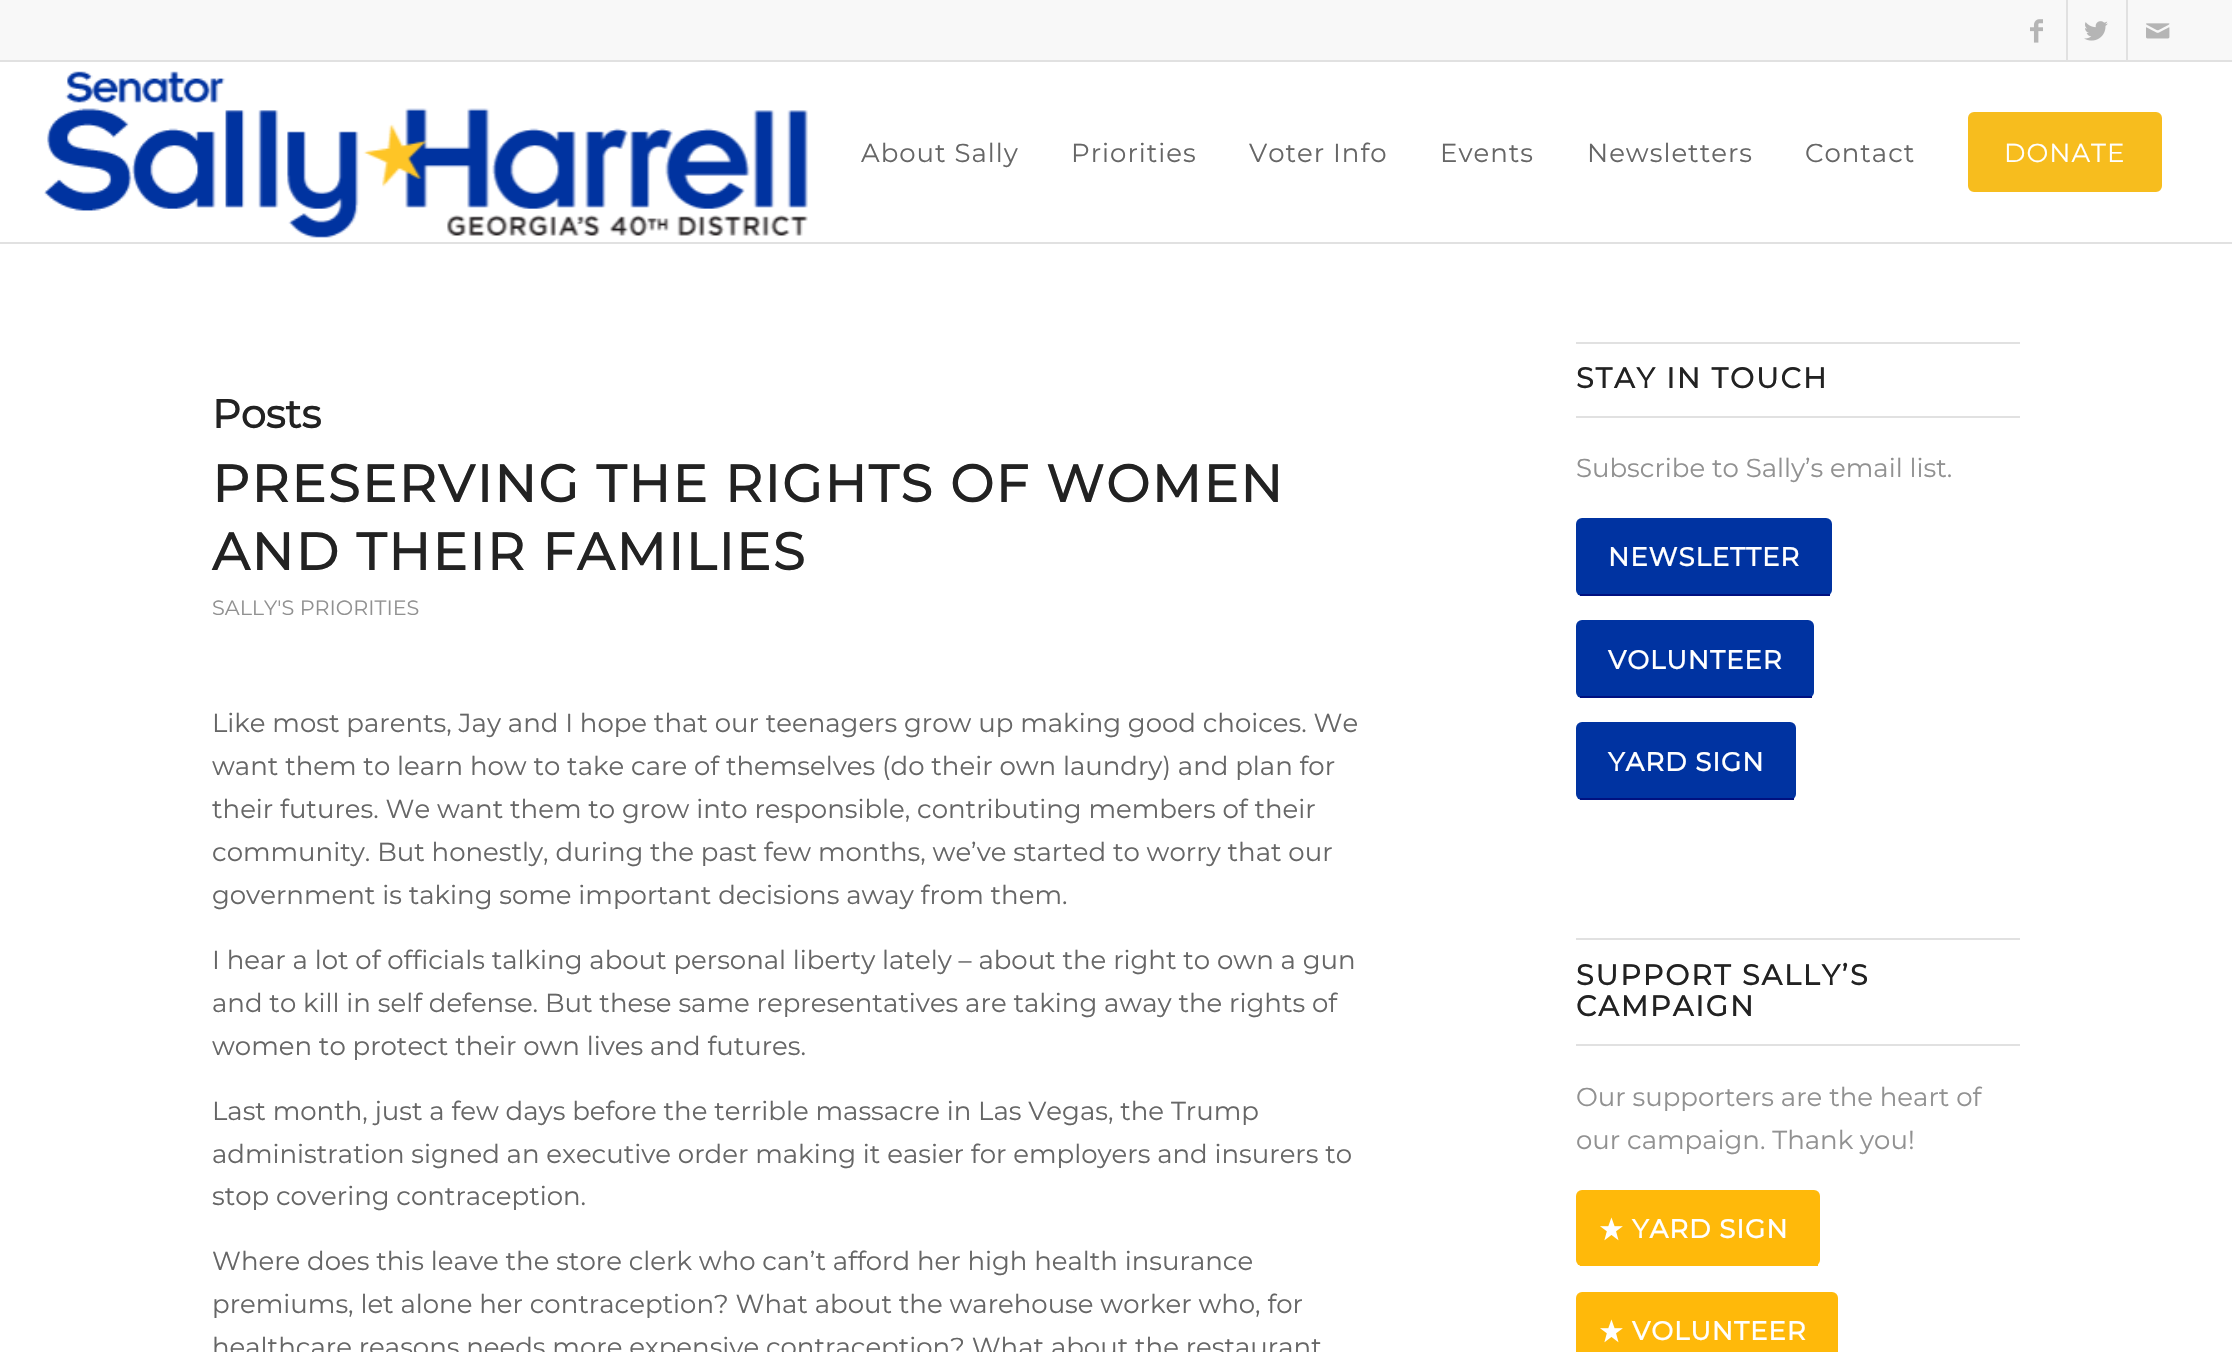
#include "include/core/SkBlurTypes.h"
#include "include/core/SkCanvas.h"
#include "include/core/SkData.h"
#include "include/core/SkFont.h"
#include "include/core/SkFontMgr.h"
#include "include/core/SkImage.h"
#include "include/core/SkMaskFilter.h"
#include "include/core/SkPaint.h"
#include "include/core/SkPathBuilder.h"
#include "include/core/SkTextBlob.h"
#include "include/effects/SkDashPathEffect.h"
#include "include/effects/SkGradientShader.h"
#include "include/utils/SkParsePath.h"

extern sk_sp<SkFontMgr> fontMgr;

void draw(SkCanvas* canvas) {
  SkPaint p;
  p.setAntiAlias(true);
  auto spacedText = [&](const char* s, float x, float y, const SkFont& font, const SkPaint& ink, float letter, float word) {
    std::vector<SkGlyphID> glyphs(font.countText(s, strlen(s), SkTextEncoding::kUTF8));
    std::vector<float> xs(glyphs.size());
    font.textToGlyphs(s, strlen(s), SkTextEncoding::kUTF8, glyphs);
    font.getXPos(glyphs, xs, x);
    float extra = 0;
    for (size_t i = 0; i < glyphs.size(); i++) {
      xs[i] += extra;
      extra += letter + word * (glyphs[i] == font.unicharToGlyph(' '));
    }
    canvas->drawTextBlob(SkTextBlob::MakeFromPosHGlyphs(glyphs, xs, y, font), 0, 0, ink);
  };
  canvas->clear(SK_ColorWHITE);
  p.setColor(SkColorSetRGB(248, 248, 248));
  canvas->drawRect(SkRect::MakeLTRB(0, 0, 2232, 60), p);
  p.setColor(SkColorSetRGB(225, 225, 225));
  canvas->drawRect(SkRect::MakeLTRB(0, 60, 2232, 62), p);
  canvas->drawRect(SkRect::MakeLTRB(2066, 0, 2068, 60), p);
  canvas->drawImageRect(SkImages::DeferredFromEncodedData(SkData::MakeFromFileName("images/1.png")), SkRect::MakeLTRB(2030, 19, 2043, 43), SkSamplingOptions());
  canvas->drawRect(SkRect::MakeLTRB(2126, 0, 2128, 60), p);
  canvas->drawImageRect(SkImages::DeferredFromEncodedData(SkData::MakeFromFileName("images/2.png")), SkRect::MakeLTRB(2084, 21, 2108, 41), SkSamplingOptions());
  canvas->drawImageRect(SkImages::DeferredFromEncodedData(SkData::MakeFromFileName("images/3.png")), SkRect::MakeLTRB(2146, 23, 2170, 39), SkSamplingOptions());
  canvas->drawRect(SkRect::MakeLTRB(0, 242, 2232, 244), p);
  canvas->drawImageRect(SkImages::DeferredFromEncodedData(SkData::MakeFromFileName("images/4.png")), SkRect::MakeLTRB(44, 71, 808, 238), SkSamplingOptions());
  p.setColor(SkColorSetRGB(247, 189, 30));
  canvas->drawRoundRect(SkRect::MakeLTRB(1970, 114, 2160, 190), 4, 4, p);
  p.setStyle(SkPaint::kStroke_Style);
  p.setStrokeWidth(4);
  canvas->drawRoundRect(SkRect::MakeLTRB(1970, 114, 2160, 190), 4, 4, p);
  p.setStyle(SkPaint::kFill_Style);
  p.setColor(SkColorSetRGB(225, 225, 225));
  canvas->drawRect(SkRect::MakeLTRB(1576, 342, 2020, 344), p);
  canvas->drawRect(SkRect::MakeLTRB(1576, 416, 2020, 418), p);
  p.setColor(SkColorSetRGB(0, 51, 161));
  canvas->drawRoundRect(SkRect::MakeLTRB(1576, 518, 1832, 596), 6, 6, p);
  p.setColor(SkColorSetRGB(0, 17, 128));
  canvas->drawRect(SkRect::MakeLTRB(1580, 594, 1830, 596), p);
  p.setColor(SkColorSetRGB(0, 51, 161));
  canvas->drawRoundRect(SkRect::MakeLTRB(1576, 620, 1814, 698), 6, 6, p);
  p.setColor(SkColorSetRGB(0, 17, 128));
  canvas->drawRect(SkRect::MakeLTRB(1580, 696, 1812, 698), p);
  p.setColor(SkColorSetRGB(0, 51, 161));
  canvas->drawRoundRect(SkRect::MakeLTRB(1576, 722, 1796, 800), 6, 6, p);
  p.setColor(SkColorSetRGB(0, 17, 128));
  canvas->drawRect(SkRect::MakeLTRB(1580, 798, 1794, 800), p);
  p.setColor(SkColorSetRGB(225, 225, 225));
  canvas->drawRect(SkRect::MakeLTRB(1576, 938, 2020, 940), p);
  canvas->drawRect(SkRect::MakeLTRB(1576, 1044, 2020, 1046), p);
  p.setColor(SkColorSetRGB(255, 185, 10));
  canvas->drawRoundRect(SkRect::MakeLTRB(1576, 1190, 1820, 1266), 6, 6, p);
  canvas->drawRect(SkRect::MakeLTRB(1580, 1264, 1818, 1266), p);
  canvas->drawImageRect(SkImages::DeferredFromEncodedData(SkData::MakeFromFileName("images/5.png")), SkRect::MakeLTRB(1600, 1217, 1623, 1241), SkSamplingOptions());
  canvas->drawRoundRect(SkRect::MakeLTRB(1576, 1292, 1838, 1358), 6, 6, p);
  canvas->drawImageRect(SkImages::DeferredFromEncodedData(SkData::MakeFromFileName("images/5.png")), SkRect::MakeLTRB(1600, 1319, 1623, 1343), SkSamplingOptions());
  SkFont font1(fontMgr->matchFamilyStyle("Montserrat", SkFontStyle(100, SkFontStyle::kNormal_Width, SkFontStyle::kUpright_Slant)), 26);
  font1.setSubpixel(true);
  p.setColor(SkColorSetRGB(102, 102, 102));
  spacedText("About Sally", 861, 162, font1, p, 1, 0);
  spacedText("Priorities", 1071, 162, font1, p, 1, 0);
  spacedText("Voter Info", 1249, 162, font1, p, 1, 0);
  spacedText("Events", 1440, 162, font1, p, 1, 0);
  spacedText("Newsletters", 1587, 162, font1, p, 1, 0);
  spacedText("Contact", 1805, 162, font1, p, 1, 0);
  p.setColor(SK_ColorWHITE);
  spacedText("DONATE", 2004, 162, font1, p, 1, 0);
  SkFont font2(fontMgr->matchFamilyStyle("Montserrat", SkFontStyle::Bold()), 40);
  font2.setSubpixel(true);
  p.setColor(SkColorSetRGB(34, 34, 34));
  canvas->drawString("Posts", 212, 428, font2, p);
  SkFont font3(fontMgr->matchFamilyStyle("Montserrat", SkFontStyle::Bold()), 52);
  font3.setSubpixel(true);
  spacedText("PRESERVING THE RIGHTS OF WOMEN", 212, 502, font3, p, 2, 0);
  spacedText("AND THEIR FAMILIES", 212, 570, font3, p, 2, 0);
  SkFont font4(fontMgr->matchFamilyStyle("Montserrat", SkFontStyle(100, SkFontStyle::kNormal_Width, SkFontStyle::kUpright_Slant)), 20.75f);
  font4.setSubpixel(true);
  p.setColor(SkColorSetRGB(145, 145, 145));
  canvas->drawString("SALLY'S PRIORITIES", 212, 615, font4, p);
  p.setColor(SkColorSetRGB(102, 102, 102));
  canvas->drawString("Like most parents, Jay and I hope that our teenagers grow up making good choices. We", 212, 732, font1, p);
  canvas->drawString("want them to learn how to take care of themselves (do their own laundry) and plan for", 212, 775, font1, p);
  canvas->drawString("their futures. We want them to grow into responsible, contributing members of their", 212, 818, font1, p);
  canvas->drawString("community. But honestly, during the past few months, we’ve started to worry that our", 212, 861, font1, p);
  canvas->drawString("government is taking some important decisions away from them.", 212, 904, font1, p);
  canvas->drawString("I hear a lot of officials talking about personal liberty lately – about the right to own a gun", 212, 969, font1, p);
  canvas->drawString("and to kill in self defense. But these same representatives are taking away the rights of", 212, 1012, font1, p);
  canvas->drawString("women to protect their own lives and futures.", 212, 1055, font1, p);
  canvas->drawString("Last month, just a few days before the terrible massacre in Las Vegas, the Trump", 212, 1120, font1, p);
  canvas->drawString("administration signed an executive order making it easier for employers and insurers to", 212, 1163, font1, p);
  canvas->drawString("stop covering contraception.", 212, 1205, font1, p);
  canvas->drawString("Where does this leave the store clerk who can’t afford her high health insurance", 212, 1270, font1, p);
  canvas->drawString("premiums, let alone her contraception? What about the warehouse worker who, for", 212, 1313, font1, p);
  canvas->drawString("healthcare reasons needs more expensive contraception? What about the restaurant", 212, 1356, font1, p);
  SkFont font5(fontMgr->matchFamilyStyle("Montserrat", SkFontStyle::Bold()), 28.6f);
  font5.setSubpixel(true);
  p.setColor(SkColorSetRGB(34, 34, 34));
  spacedText("STAY IN TOUCH", 1576, 388, font5, p, 2, 0);
  p.setColor(SkColorSetRGB(145, 145, 145));
  canvas->drawString("Subscribe to Sally’s email list.", 1576, 477, font1, p);
  SkFont font6(fontMgr->matchFamilyStyle("Montserrat", SkFontStyle::Bold()), 26);
  font6.setSubpixel(true);
  p.setColor(SK_ColorWHITE);
  spacedText("NEWSLETTER", 1608, 566, font6, p, 1, 0);
  spacedText("VOLUNTEER", 1608, 669, font6, p, 1, 0);
  spacedText("YARD SIGN", 1608, 771, font6, p, 1, 0);
  p.setColor(SkColorSetRGB(34, 34, 34));
  spacedText("SUPPORT SALLY’S", 1576, 985, font5, p, 2, 0);
  spacedText("CAMPAIGN", 1576, 1016, font5, p, 2, 0);
  p.setColor(SkColorSetRGB(145, 145, 145));
  canvas->drawString("Our supporters are the heart of", 1576, 1106, font1, p);
  canvas->drawString("our campaign. Thank you!", 1576, 1149, font1, p);
  p.setColor(SK_ColorWHITE);
  spacedText("YARD SIGN", 1632, 1238, font6, p, 1, 0);
  spacedText("VOLUNTEER", 1632, 1340, font6, p, 1, 0);
}
